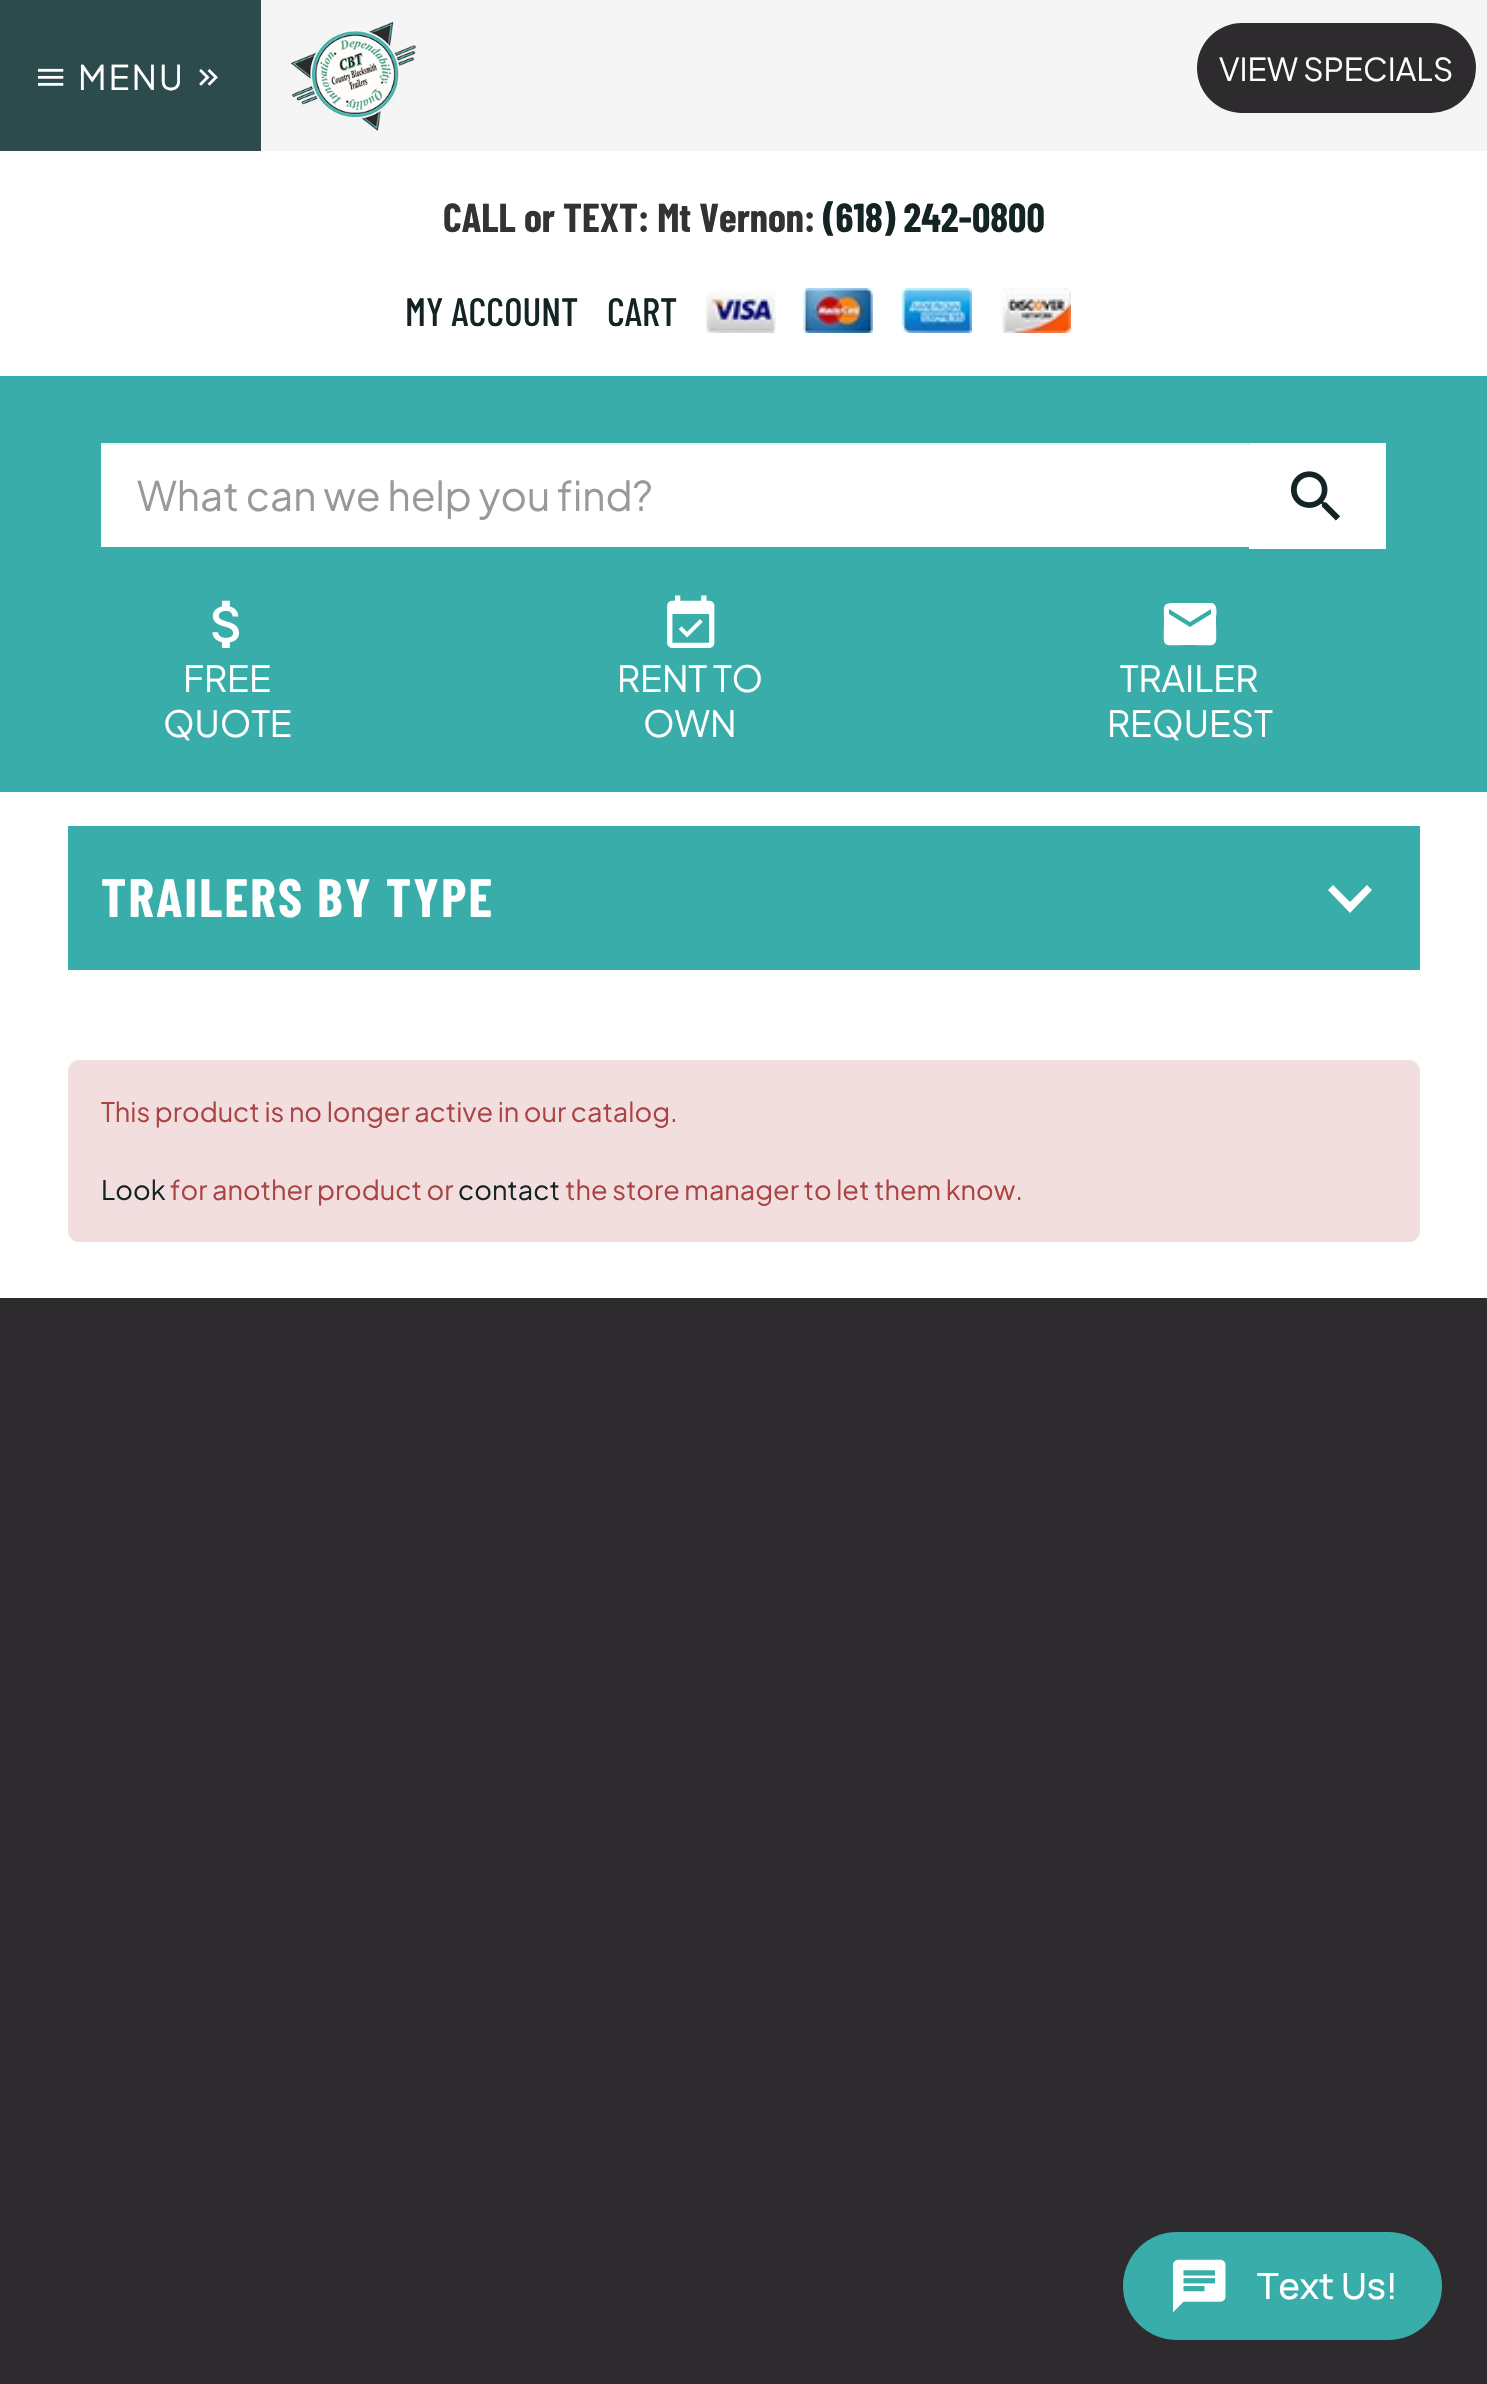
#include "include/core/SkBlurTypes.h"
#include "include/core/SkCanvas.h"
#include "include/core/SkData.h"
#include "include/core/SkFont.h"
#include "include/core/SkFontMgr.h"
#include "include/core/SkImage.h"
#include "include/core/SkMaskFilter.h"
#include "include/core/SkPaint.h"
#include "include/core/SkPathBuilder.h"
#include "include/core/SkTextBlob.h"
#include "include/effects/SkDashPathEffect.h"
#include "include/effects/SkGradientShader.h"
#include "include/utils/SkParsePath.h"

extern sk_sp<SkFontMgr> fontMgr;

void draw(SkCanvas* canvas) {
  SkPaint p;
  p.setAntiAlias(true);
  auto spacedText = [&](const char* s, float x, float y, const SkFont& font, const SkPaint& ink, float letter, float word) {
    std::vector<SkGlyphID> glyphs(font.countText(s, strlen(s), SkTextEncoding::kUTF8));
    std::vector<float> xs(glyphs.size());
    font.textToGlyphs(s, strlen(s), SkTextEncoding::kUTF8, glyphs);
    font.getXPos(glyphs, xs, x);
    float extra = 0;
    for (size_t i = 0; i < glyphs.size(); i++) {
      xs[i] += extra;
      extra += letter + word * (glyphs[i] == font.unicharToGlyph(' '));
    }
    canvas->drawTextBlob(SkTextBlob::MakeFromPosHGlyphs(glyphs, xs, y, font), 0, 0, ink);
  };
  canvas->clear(SkColorSetRGB(45, 43, 45));
  p.setColor(SkColorSetRGB(245, 245, 245));
  canvas->drawRect(SkRect::MakeLTRB(261, 0, 1487, 151), p);
  p.setColor(SkColorSetRGB(45, 74, 76));
  canvas->drawRect(SkRect::MakeLTRB(0, 0, 261, 151), p);
  canvas->drawImageRect(SkImages::DeferredFromEncodedData(SkData::MakeFromFileName("images/1.png")), SkRect::MakeLTRB(37, 68, 64, 86), SkSamplingOptions());
  canvas->drawImageRect(SkImages::DeferredFromEncodedData(SkData::MakeFromFileName("images/2.png")), SkRect::MakeLTRB(199, 69, 218, 86), SkSamplingOptions());
  canvas->drawImageRect(SkImages::DeferredFromEncodedData(SkData::MakeFromFileName("images/3.png")), SkRect::MakeLTRB(291, 21, 417, 131), SkSamplingOptions());
  p.setColor(SkColorSetRGB(45, 43, 45));
  canvas->drawRoundRect(SkRect::MakeLTRB(1197, 23, 1476, 113), 45, 45, p);
  p.setColor(SK_ColorWHITE);
  canvas->drawRect(SkRect::MakeLTRB(0, 151, 1487, 1298), p);
  canvas->drawImageRect(SkImages::DeferredFromEncodedData(SkData::MakeFromFileName("images/4.png")), SkRect::MakeLTRB(706, 288, 777, 333), SkSamplingOptions());
  canvas->drawImageRect(SkImages::DeferredFromEncodedData(SkData::MakeFromFileName("images/5.png")), SkRect::MakeLTRB(803, 288, 873, 333), SkSamplingOptions());
  canvas->drawImageRect(SkImages::DeferredFromEncodedData(SkData::MakeFromFileName("images/6.png")), SkRect::MakeLTRB(902, 288, 972, 333), SkSamplingOptions());
  canvas->drawImageRect(SkImages::DeferredFromEncodedData(SkData::MakeFromFileName("images/7.png")), SkRect::MakeLTRB(1001, 288, 1071, 333), SkSamplingOptions());
  p.setColor(SkColorSetRGB(57, 173, 170));
  canvas->drawRect(SkRect::MakeLTRB(0, 376, 1487, 792), p);
  p.setColor(SK_ColorWHITE);
  canvas->drawRect(SkRect::MakeLTRB(101, 445, 1249, 547), p);
  canvas->drawRect(SkRect::MakeLTRB(1249, 443, 1386, 549), p);
  p.setColor(SkColorSetRGB(236, 236, 236));
  canvas->drawRect(SkRect::MakeLTRB(101, 443, 1251, 445), p);
  canvas->drawImageRect(SkImages::DeferredFromEncodedData(SkData::MakeFromFileName("images/8.png")), SkRect::MakeLTRB(1290, 471, 1340, 521), SkSamplingOptions());
  canvas->drawImageRect(SkImages::DeferredFromEncodedData(SkData::MakeFromFileName("images/9.png")), SkRect::MakeLTRB(212, 600, 239, 648), SkSamplingOptions());
  canvas->drawImageRect(SkImages::DeferredFromEncodedData(SkData::MakeFromFileName("images/10.png")), SkRect::MakeLTRB(667, 595, 715, 648), SkSamplingOptions());
  p.setColor(SK_ColorWHITE);
  canvas->drawPath(SkPathBuilder().moveTo(1211, 614).lineTo(1190, 627).lineTo(1169, 614).lineTo(1169, 609).lineTo(1190, 622).lineTo(1211, 609).close().moveTo(1211, 603).lineTo(1176, 603).cubicTo(1162, 603, 1164, 605, 1164, 619).cubicTo(1164, 650, 1159, 645, 1190, 645).cubicTo(1221, 645, 1216, 650, 1216, 619).cubicTo(1216, 615, 1219, 604, 1211, 603).close().detach(), p);
  p.setColor(SkColorSetRGB(57, 173, 170));
  canvas->drawRect(SkRect::MakeLTRB(68, 826, 1420, 970), p);
  p.setColor(SK_ColorWHITE);
  canvas->drawPath(SkPathBuilder().moveTo(1333, 885).lineTo(1350, 902).lineTo(1367, 885).lineTo(1372, 890).lineTo(1350, 913).lineTo(1328, 890).close().detach(), p);
  p.setColor(SkColorSetRGB(242, 222, 222));
  canvas->drawRoundRect(SkRect::MakeLTRB(68, 1060, 1420, 1242), 11, 11, p);
  p.setColor(SkColorSetRGB(57, 173, 170));
  canvas->drawRoundRect(SkRect::MakeLTRB(1123, 2232, 1442, 2340), 54, 54, p);
  canvas->drawImageRect(SkImages::DeferredFromEncodedData(SkData::MakeFromFileName("images/11.png")), SkRect::MakeLTRB(1173, 2259, 1226, 2313), SkSamplingOptions());
  SkFont font1(fontMgr->matchFamilyStyle("Plus Jakarta Sans", SkFontStyle::Normal()), 34);
  font1.setSubpixel(true);
  p.setColor(SK_ColorWHITE);
  spacedText("MENU", 78, 90, font1, p, 2.25f, 0);
  SkFont font2(fontMgr->matchFamilyStyle("Plus Jakarta Sans", SkFontStyle::Normal()), 31.5f);
  font2.setSubpixel(true);
  canvas->drawString("VIEW SPECIALS", 1219, 81, font2, p);
  SkFont font3(fontMgr->matchFamilyStyle("Barlow Condensed", SkFontStyle::Bold()), 40.5f);
  font3.setSubpixel(true);
  p.setColor(SkColorSetRGB(51, 51, 51));
  canvas->drawString("CALL or TEXT: Mt Vernon:", 443, 232, font3, p);
  p.setColor(SkColorSetRGB(20, 36, 36));
  canvas->drawString("(618) 242-0800", 823, 232, font3, p);
  SkFont font4(fontMgr->matchFamilyStyle("Barlow Condensed", SkFontStyle(500, SkFontStyle::kNormal_Width, SkFontStyle::kUpright_Slant)), 39.5f);
  font4.setSubpixel(true);
  canvas->drawString("MY ACCOUNT", 405, 326, font4, p);
  canvas->drawString("CART", 607, 326, font4, p);
  SkFont font5(fontMgr->matchFamilyStyle("Plus Jakarta Sans", SkFontStyle::Normal()), 40.5f);
  font5.setSubpixel(true);
  p.setColor(SkColorSetRGB(153, 153, 153));
  canvas->drawString("What can we help you find?", 137, 511, font5, p);
  SkFont font6(fontMgr->matchFamilyStyle("Plus Jakarta Sans", SkFontStyle::Normal()), 36);
  font6.setSubpixel(true);
  p.setColor(SK_ColorWHITE);
  canvas->drawString("FREE", 183, 692, font6, p);
  canvas->drawString("QUOTE", 163, 737, font6, p);
  canvas->drawString("RENT TO", 617, 692, font6, p);
  canvas->drawString("OWN", 643, 737, font6, p);
  canvas->drawString("TRAILER", 1120, 692, font6, p);
  canvas->drawString("REQUEST", 1107, 737, font6, p);
  SkFont font7(fontMgr->matchFamilyStyle("Barlow Condensed", SkFontStyle::Bold()), 54);
  font7.setSubpixel(true);
  spacedText("TRAILERS BY TYPE", 101, 917, font7, p, 2.25f, 0);
  SkFont font8(fontMgr->matchFamilyStyle("Plus Jakarta Sans", SkFontStyle::Normal()), 27);
  font8.setSubpixel(true);
  p.setColor(SkColorSetRGB(169, 68, 66));
  canvas->drawString("This product is no longer active in our catalog.", 101, 1122, font8, p);
  p.setColor(SkColorSetRGB(20, 36, 36));
  canvas->drawString("Look", 101, 1200, font8, p);
  p.setColor(SkColorSetRGB(169, 68, 66));
  canvas->drawString("for another product or", 170, 1200, font8, p);
  p.setColor(SkColorSetRGB(20, 36, 36));
  canvas->drawString("contact", 458, 1200, font8, p);
  p.setColor(SkColorSetRGB(169, 68, 66));
  canvas->drawString("the store manager to let them know.", 565, 1200, font8, p);
  SkFont font9(fontMgr->matchFamilyStyle("Manrope", SkFontStyle(500, SkFontStyle::kNormal_Width, SkFontStyle::kUpright_Slant)), 36);
  font9.setSubpixel(true);
  p.setColor(SK_ColorWHITE);
  canvas->drawString("Text Us!", 1257, 2299, font9, p);
}
